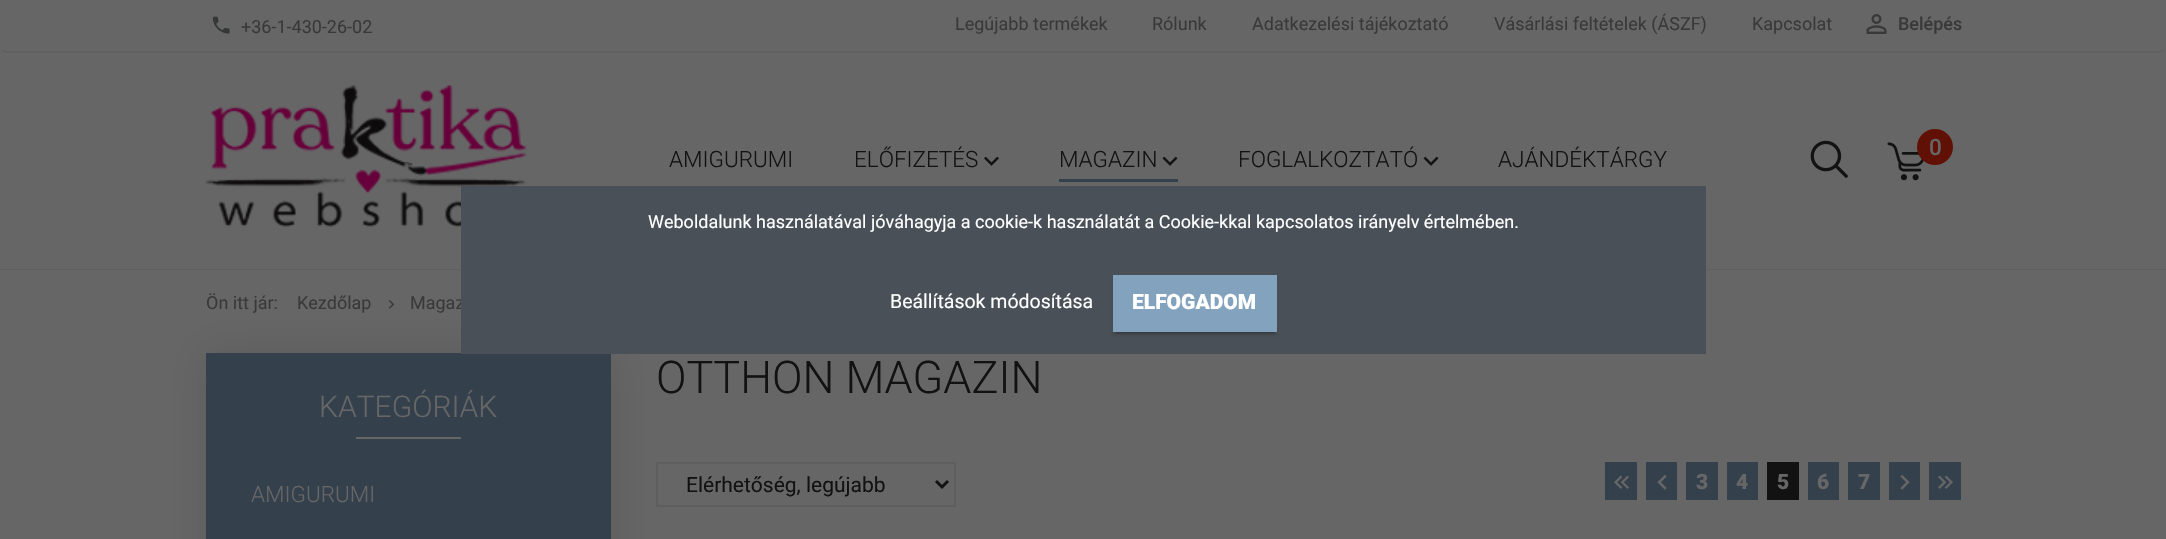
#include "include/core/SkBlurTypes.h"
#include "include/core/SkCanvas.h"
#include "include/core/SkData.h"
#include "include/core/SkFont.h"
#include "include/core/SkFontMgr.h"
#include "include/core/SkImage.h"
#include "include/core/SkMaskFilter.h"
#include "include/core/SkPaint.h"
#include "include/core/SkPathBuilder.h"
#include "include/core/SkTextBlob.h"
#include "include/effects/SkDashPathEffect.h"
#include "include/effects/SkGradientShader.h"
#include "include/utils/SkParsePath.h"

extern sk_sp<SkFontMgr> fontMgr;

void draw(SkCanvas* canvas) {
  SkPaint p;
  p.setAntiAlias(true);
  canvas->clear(SkColorSetRGB(102, 102, 102));
  p.setStyle(SkPaint::kStroke_Style);
  p.setStrokeWidth(1.5f);
  p.setColor(SkColorSetRGB(94, 95, 96));
  canvas->drawPath(SkPathBuilder().moveTo(2163.5f, 50).cubicTo(2162.5f, 51, 2161.5f, 52, 2160, 52).lineTo(6, 52).cubicTo(4.5f, 52, 3.5f, 51, 2.5f, 50).detach(), p);
  canvas->drawImageRect(SkImages::DeferredFromEncodedData(SkData::MakeFromFileName("images/1.png")), SkRect::MakeLTRB(212, 16, 230, 34), SkSamplingOptions());
  canvas->drawImageRect(SkImages::DeferredFromEncodedData(SkData::MakeFromFileName("images/2.png")), SkRect::MakeLTRB(1866, 14, 1887, 34), SkSamplingOptions());
  p.setStyle(SkPaint::kFill_Style);
  canvas->drawRect(SkRect::MakeLTRB(0, 269, 2166, 270), p);
  canvas->drawImageRect(SkImages::DeferredFromEncodedData(SkData::MakeFromFileName("images/3.png")), SkRect::MakeLTRB(205, 85, 527, 227), SkSamplingOptions());
  canvas->drawImageRect(SkImages::DeferredFromEncodedData(SkData::MakeFromFileName("images/4.png")), SkRect::MakeLTRB(984, 156, 999, 166), SkSamplingOptions());
  canvas->drawImageRect(SkImages::DeferredFromEncodedData(SkData::MakeFromFileName("images/5.png")), SkRect::MakeLTRB(1162, 156, 1178, 166), SkSamplingOptions());
  p.setColor(SkColorSetRGB(52, 65, 76));
  canvas->drawRect(SkRect::MakeLTRB(1059, 179, 1178, 182), p);
  canvas->drawImageRect(SkImages::DeferredFromEncodedData(SkData::MakeFromFileName("images/5.png")), SkRect::MakeLTRB(1423, 156, 1439, 166), SkSamplingOptions());
  canvas->drawImageRect(SkImages::DeferredFromEncodedData(SkData::MakeFromFileName("images/6.png")), SkRect::MakeLTRB(1810, 140, 1848, 178), SkSamplingOptions());
  canvas->drawImageRect(SkImages::DeferredFromEncodedData(SkData::MakeFromFileName("images/7.png")), SkRect::MakeLTRB(1887, 142, 1924, 181), SkSamplingOptions());
  p.setColor(SkColorSetRGB(96, 16, 4));
  canvas->drawCircle(1935, 147, 18, p);
  canvas->drawImageRect(SkImages::DeferredFromEncodedData(SkData::MakeFromFileName("images/8.png")), SkRect::MakeLTRB(388, 300, 395, 309), SkSamplingOptions());
  p.setStyle(SkPaint::kStroke_Style);
  p.setStrokeWidth(2);
  p.setColor(SkColorSetRGB(94, 94, 94));
  canvas->drawRect(SkRect::MakeLTRB(657, 463, 955, 506), p);
  p.setStyle(SkPaint::kFill_Style);
  p.setColor(SkColorSetARGB(26, 0, 0, 0));
  p.setMaskFilter(SkMaskFilter::MakeBlur(kNormal_SkBlurStyle, 19));
  canvas->drawRect(SkRect::MakeLTRB(206, 353, 611, 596), p);
  p.setMaskFilter(nullptr);
  p.setColor(SkColorSetRGB(52, 65, 76));
  canvas->drawRect(SkRect::MakeLTRB(206, 353, 611, 539), p);
  p.setColor(SkColorSetRGB(102, 102, 102));
  canvas->drawRect(SkRect::MakeLTRB(356, 437, 461, 439), p);
  p.setStyle(SkPaint::kStroke_Style);
  p.setStrokeWidth(3);
  p.setColor(SkColorSetRGB(18, 18, 18));
  canvas->drawPath(SkPathBuilder().moveTo(936, 481).lineTo(942, 487).lineTo(948, 481).detach(), p);
  p.setStyle(SkPaint::kFill_Style);
  p.setColor(SkColorSetRGB(52, 65, 76));
  canvas->drawRect(SkRect::MakeLTRB(1605, 462, 1637, 500), p);
  canvas->drawImageRect(SkImages::DeferredFromEncodedData(SkData::MakeFromFileName("images/9.png")), SkRect::MakeLTRB(1614, 475, 1629, 489), SkSamplingOptions());
  canvas->drawRect(SkRect::MakeLTRB(1646, 462, 1677, 500), p);
  canvas->drawImageRect(SkImages::DeferredFromEncodedData(SkData::MakeFromFileName("images/10.png")), SkRect::MakeLTRB(1657, 474, 1667, 490), SkSamplingOptions());
  canvas->drawRect(SkRect::MakeLTRB(1686, 462, 1718, 500), p);
  canvas->drawRect(SkRect::MakeLTRB(1727, 462, 1758, 500), p);
  p.setColor(SkColorSetRGB(18, 18, 18));
  canvas->drawRect(SkRect::MakeLTRB(1769, 464, 1797, 497), p);
  canvas->drawRect(SkRect::MakeLTRB(1767, 462, 1799, 464), p);
  canvas->drawRect(SkRect::MakeLTRB(1797, 462, 1799, 500), p);
  canvas->drawRect(SkRect::MakeLTRB(1767, 497, 1799, 500), p);
  canvas->drawRect(SkRect::MakeLTRB(1767, 462, 1769, 500), p);
  p.setColor(SkColorSetRGB(52, 65, 76));
  canvas->drawRect(SkRect::MakeLTRB(1808, 462, 1839, 500), p);
  canvas->drawRect(SkRect::MakeLTRB(1848, 462, 1880, 500), p);
  canvas->drawRect(SkRect::MakeLTRB(1889, 462, 1920, 500), p);
  canvas->drawImageRect(SkImages::DeferredFromEncodedData(SkData::MakeFromFileName("images/11.png")), SkRect::MakeLTRB(1900, 474, 1910, 490), SkSamplingOptions());
  canvas->drawRect(SkRect::MakeLTRB(1929, 462, 1961, 500), p);
  canvas->drawImageRect(SkImages::DeferredFromEncodedData(SkData::MakeFromFileName("images/12.png")), SkRect::MakeLTRB(1938, 475, 1953, 489), SkSamplingOptions());
  SkFont font1(fontMgr->matchFamilyStyle("Roboto", SkFontStyle::Normal()), 18);
  font1.setSubpixel(true);
  p.setColor(SkColorSetRGB(57, 57, 57));
  canvas->drawString("+36-1-430-26-02", 241, 33, font1, p);
  canvas->drawString("Legújabb termékek", 955, 30, font1, p);
  canvas->drawString("Rólunk", 1152, 30, font1, p);
  canvas->drawString("Adatkezelési tájékoztató", 1252, 30, font1, p);
  canvas->drawString("Vásárlási feltételek (ÁSZF)", 1494, 30, font1, p);
  canvas->drawString("Kapcsolat", 1752, 30, font1, p);
  SkFont font2(fontMgr->matchFamilyStyle("Roboto", SkFontStyle(500, SkFontStyle::kNormal_Width, SkFontStyle::kUpright_Slant)), 18);
  font2.setSubpixel(true);
  canvas->drawString("Belépés", 1898, 30, font2, p);
  SkFont font3(fontMgr->matchFamilyStyle("Roboto", SkFontStyle(300, SkFontStyle::kNormal_Width, SkFontStyle::kUpright_Slant)), 22.5f);
  font3.setSubpixel(true);
  p.setColor(SkColorSetRGB(18, 18, 18));
  canvas->drawString("AMIGURUMI", 669, 167, font3, p);
  canvas->drawString("ELŐFIZETÉS", 854, 167, font3, p);
  canvas->drawString("MAGAZIN", 1059, 167, font3, p);
  canvas->drawString("FOGLALKOZTATÓ", 1238, 167, font3, p);
  canvas->drawString("AJÁNDÉKTÁRGY", 1498, 167, font3, p);
  SkFont font4(fontMgr->matchFamilyStyle("Roboto", SkFontStyle(500, SkFontStyle::kNormal_Width, SkFontStyle::kUpright_Slant)), 22.5f);
  font4.setSubpixel(true);
  p.setColor(SkColorSetRGB(102, 102, 102));
  canvas->drawString("0", 1929, 155, font4, p);
  p.setColor(SkColorSetRGB(57, 57, 57));
  canvas->drawString("Ön itt jár:", 206, 309, font1, p);
  canvas->drawString("Kezdőlap", 297, 309, font1, p);
  canvas->drawString("Magaz", 410, 309, font1, p);
  SkFont font5(fontMgr->matchFamilyStyle("Roboto", SkFontStyle(300, SkFontStyle::kNormal_Width, SkFontStyle::kUpright_Slant)), 30);
  font5.setSubpixel(true);
  p.setColor(SkColorSetRGB(102, 102, 102));
  canvas->drawString("KATEGÓRIÁK", 319, 417, font5, p);
  canvas->drawString("AMIGURUMI", 251, 502, font3, p);
  SkFont font6(fontMgr->matchFamilyStyle("Roboto", SkFontStyle(300, SkFontStyle::kNormal_Width, SkFontStyle::kUpright_Slant)), 45);
  font6.setSubpixel(true);
  p.setColor(SkColorSetRGB(18, 18, 18));
  canvas->drawString("OTTHON MAGAZIN", 656, 393, font6, p);
  SkFont font7(fontMgr->matchFamilyStyle("Roboto", SkFontStyle::Normal()), 21);
  font7.setSubpixel(true);
  canvas->drawString("Elérhetőség, legújabb", 686, 492, font7, p);
  SkFont font8(fontMgr->matchFamilyStyle("Roboto", SkFontStyle(900, SkFontStyle::kNormal_Width, SkFontStyle::kUpright_Slant)), 21);
  font8.setSubpixel(true);
  p.setColor(SkColorSetRGB(102, 102, 102));
  canvas->drawString("3", 1696, 489, font8, p);
  canvas->drawString("4", 1736, 489, font8, p);
  canvas->drawString("5", 1777, 489, font8, p);
  canvas->drawString("6", 1817, 489, font8, p);
  canvas->drawString("7", 1858, 489, font8, p);
  p.setColor(SkColorSetRGB(73, 80, 87));
  canvas->drawRect(SkRect::MakeLTRB(461, 186, 1706, 354), p);
  p.setColor(SK_ColorWHITE);
  canvas->drawString("Weboldalunk használatával jóváhagyja a cookie-k használatát a Cookie-kkal kapcsolatos irányelv értelmében.", 648, 228, font1, p);
  SkFont font9(fontMgr->matchFamilyStyle("Roboto", SkFontStyle::Normal()), 19.5f);
  font9.setSubpixel(true);
  canvas->drawString("Beállítások módosítása", 890, 308, font9, p);
  p.setColor(SkColorSetARGB(51, 0, 0, 0));
  p.setMaskFilter(SkMaskFilter::MakeBlur(kNormal_SkBlurStyle, 1));
  canvas->drawRect(SkRect::MakeLTRB(1116, 282, 1274, 333), p);
  p.setMaskFilter(nullptr);
  p.setColor(SkColorSetARGB(36, 0, 0, 0));
  p.setMaskFilter(SkMaskFilter::MakeBlur(kNormal_SkBlurStyle, 1.5f));
  canvas->drawRect(SkRect::MakeLTRB(1113, 278, 1277, 335), p);
  p.setMaskFilter(nullptr);
  p.setColor(SkColorSetRGB(130, 162, 189));
  canvas->drawRect(SkRect::MakeLTRB(1113, 275, 1277, 332), p);
  p.setColor(SK_ColorWHITE);
  canvas->drawString("ELFOGADOM", 1132, 309, font8, p);
}
